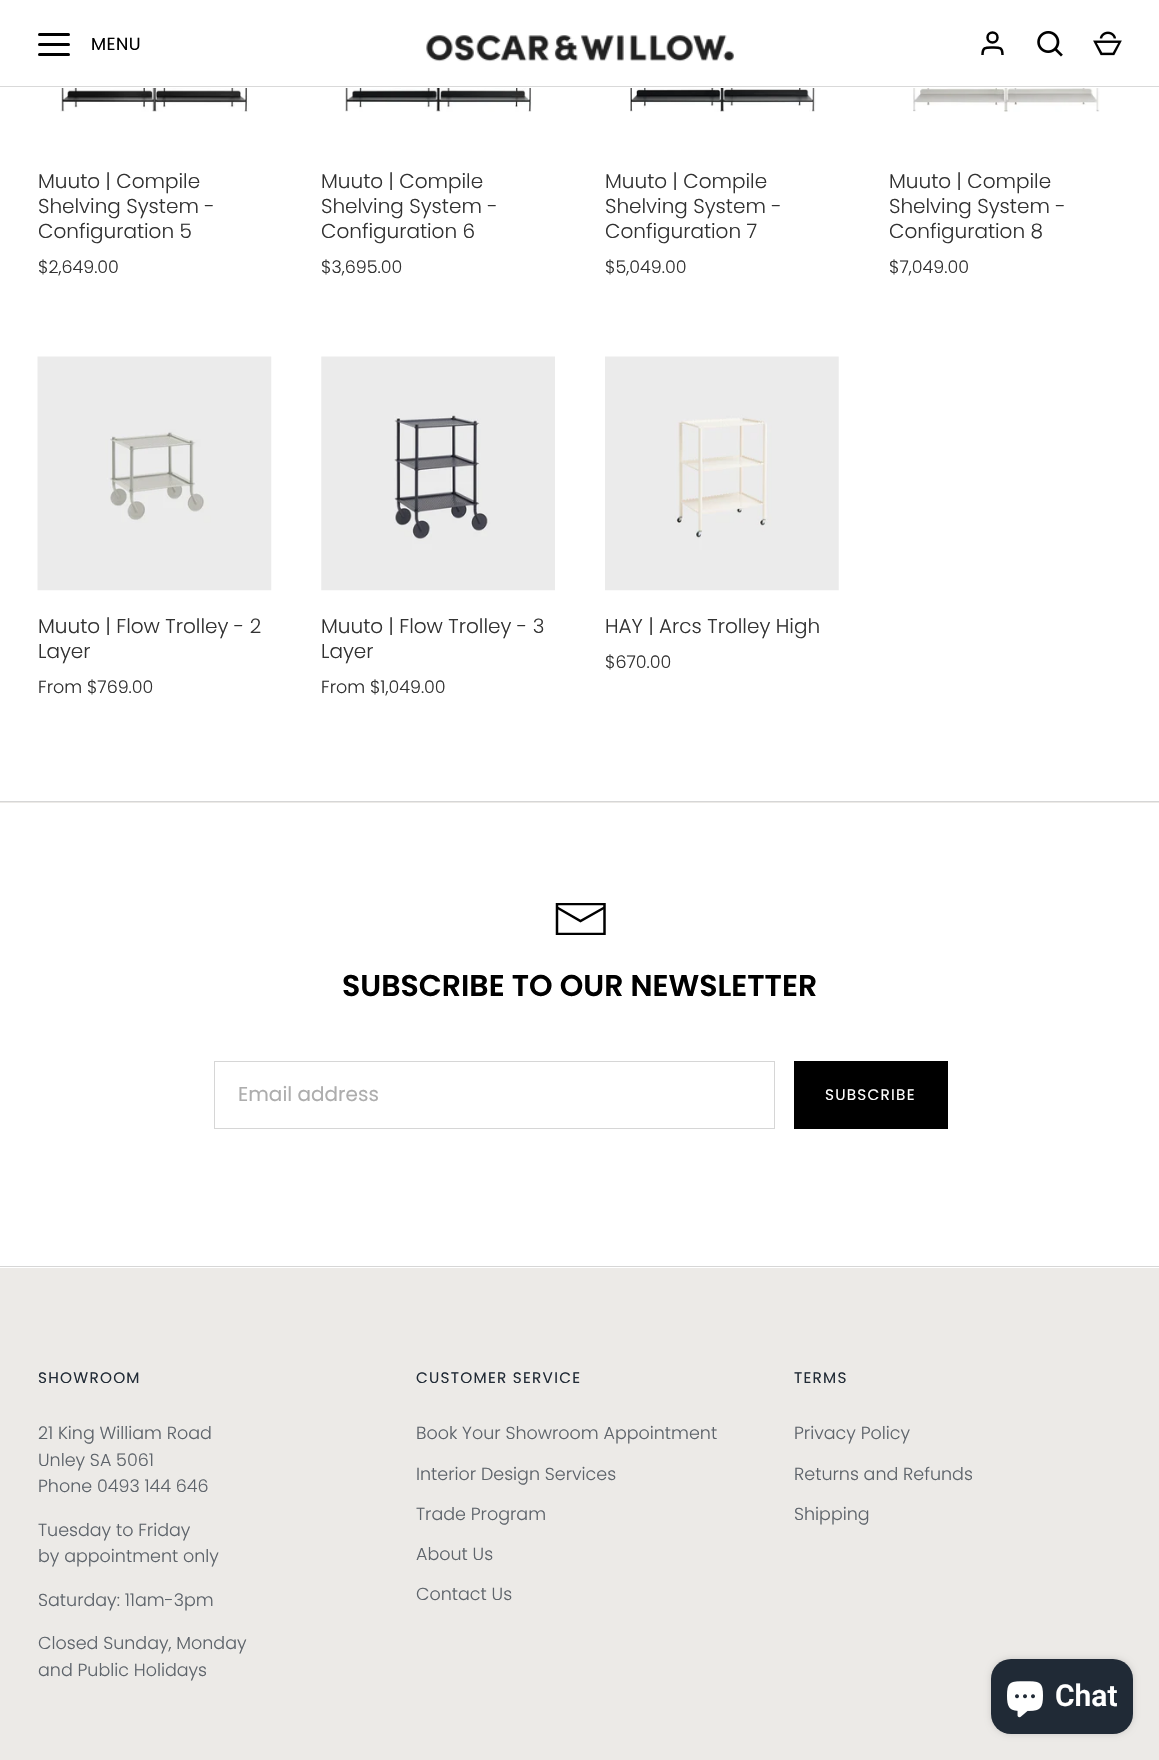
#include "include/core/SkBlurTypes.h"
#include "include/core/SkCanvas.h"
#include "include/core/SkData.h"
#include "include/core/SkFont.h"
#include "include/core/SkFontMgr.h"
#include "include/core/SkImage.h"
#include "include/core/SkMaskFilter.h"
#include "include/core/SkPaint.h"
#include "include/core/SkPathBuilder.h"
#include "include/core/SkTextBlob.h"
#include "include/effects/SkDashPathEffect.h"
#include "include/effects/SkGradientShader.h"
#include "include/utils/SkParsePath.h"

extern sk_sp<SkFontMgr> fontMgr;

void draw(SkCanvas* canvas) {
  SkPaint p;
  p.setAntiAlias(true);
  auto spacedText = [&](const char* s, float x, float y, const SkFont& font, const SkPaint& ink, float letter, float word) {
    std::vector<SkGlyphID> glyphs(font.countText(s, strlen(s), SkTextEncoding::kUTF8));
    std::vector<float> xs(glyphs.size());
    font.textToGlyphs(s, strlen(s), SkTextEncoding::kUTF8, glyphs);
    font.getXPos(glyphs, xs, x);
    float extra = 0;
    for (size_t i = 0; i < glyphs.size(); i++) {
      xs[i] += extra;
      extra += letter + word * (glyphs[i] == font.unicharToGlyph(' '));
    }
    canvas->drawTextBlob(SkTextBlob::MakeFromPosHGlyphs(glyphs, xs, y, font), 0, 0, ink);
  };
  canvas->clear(SK_ColorWHITE);
  p.setColor(SK_ColorBLACK);
  canvas->drawRoundRect(SkRect::MakeLTRB(38, 33, 70, 36), 1.5f, 1.5f, p);
  canvas->drawRoundRect(SkRect::MakeLTRB(38, 43, 70, 46), 1.5f, 1.5f, p);
  canvas->drawRoundRect(SkRect::MakeLTRB(38, 53, 70, 56), 1.5f, 1.5f, p);
  canvas->drawImageRect(SkImages::DeferredFromEncodedData(SkData::MakeFromFileName("images/1.png")), SkRect::MakeLTRB(426, 35, 734, 62), SkSamplingOptions());
  p.setStyle(SkPaint::kStroke_Style);
  p.setStrokeWidth(2.5f);
  canvas->drawCircle(992.5f, 37.5f, 5, p);
  canvas->drawPath(SkPathBuilder().moveTo(1002.5f, 55).cubicTo(1002.5f, 47, 999.5f, 47.5f, 992.5f, 47.5f).cubicTo(985.5f, 47.5f, 982.5f, 47, 982.5f, 55).detach(), p);
  canvas->drawImageRect(SkImages::DeferredFromEncodedData(SkData::MakeFromFileName("images/2.png")), SkRect::MakeLTRB(1037, 31, 1063, 57), SkSamplingOptions());
  canvas->drawImageRect(SkImages::DeferredFromEncodedData(SkData::MakeFromFileName("images/3.png")), SkRect::MakeLTRB(1093, 31, 1122, 56), SkSamplingOptions());
  p.setStyle(SkPaint::kFill_Style);
  p.setColor(SkColorSetRGB(217, 217, 217));
  canvas->drawRect(SkRect::MakeLTRB(0, 86, 1159, 87), p);
  canvas->drawImageRect(SkImages::DeferredFromEncodedData(SkData::MakeFromFileName("images/4.png")), SkRect::MakeLTRB(60, 88, 249, 112), SkSamplingOptions());
  canvas->drawImageRect(SkImages::DeferredFromEncodedData(SkData::MakeFromFileName("images/5.png")), SkRect::MakeLTRB(345, 88, 532, 112), SkSamplingOptions());
  canvas->drawImageRect(SkImages::DeferredFromEncodedData(SkData::MakeFromFileName("images/6.png")), SkRect::MakeLTRB(630, 88, 816, 112), SkSamplingOptions());
  canvas->drawImageRect(SkImages::DeferredFromEncodedData(SkData::MakeFromFileName("images/7.png")), SkRect::MakeLTRB(913, 88, 1100, 112), SkSamplingOptions());
  canvas->drawImageRect(SkImages::DeferredFromEncodedData(SkData::MakeFromFileName("images/8.png")), SkRect::MakeLTRB(37, 356, 272, 591), SkSamplingOptions());
  canvas->drawImageRect(SkImages::DeferredFromEncodedData(SkData::MakeFromFileName("images/9.png")), SkRect::MakeLTRB(321, 356, 555, 591), SkSamplingOptions());
  canvas->drawImageRect(SkImages::DeferredFromEncodedData(SkData::MakeFromFileName("images/10.png")), SkRect::MakeLTRB(605, 356, 839, 591), SkSamplingOptions());
  p.setColor(SkColorSetRGB(236, 234, 231));
  canvas->drawRect(SkRect::MakeLTRB(0, 802, 1159, 1760), p);
  p.setColor(SkColorSetRGB(214, 214, 214));
  canvas->drawRect(SkRect::MakeLTRB(0, 801, 1159, 802), p);
  p.setColor(SK_ColorWHITE);
  canvas->drawRect(SkRect::MakeLTRB(0, 803, 1159, 1268), p);
  p.setColor(SkColorSetRGB(214, 214, 214));
  canvas->drawRect(SkRect::MakeLTRB(0, 1266, 1159, 1267), p);
  canvas->save();
  canvas->clipRect(SkRect::MakeLTRB(555, 903, 606, 935));
  p.setStyle(SkPaint::kStroke_Style);
  p.setColor(SK_ColorBLACK);
  canvas->drawPath(SkPathBuilder().moveTo(557, 904).lineTo(557, 934).lineTo(604.5f, 934).lineTo(604.5f, 904).close().detach(), p);
  canvas->restore();
  canvas->drawPath(SkPathBuilder().moveTo(557, 907.5f).lineTo(580.5f, 921).lineTo(604.5f, 907.5f).detach(), p);
  p.setStrokeWidth(1);
  p.setColor(SkColorSetRGB(214, 214, 214));
  canvas->drawRect(SkRect::MakeLTRB(214.5f, 1061.5f, 774.5f, 1128.5f), p);
  p.setStyle(SkPaint::kFill_Style);
  p.setColor(SK_ColorBLACK);
  canvas->drawRect(SkRect::MakeLTRB(794, 1061, 948, 1129), p);
  p.setColor(SkColorSetARGB(38, 0, 0, 0));
  p.setMaskFilter(SkMaskFilter::MakeBlur(kNormal_SkBlurStyle, 3));
  canvas->drawRoundRect(SkRect::MakeLTRB(991, 1659, 1133, 1734), 20, 20, p);
  p.setMaskFilter(nullptr);
  p.setColor(SkColorSetRGB(32, 42, 54));
  canvas->drawRoundRect(SkRect::MakeLTRB(991, 1659, 1133, 1734), 20, 20, p);
  canvas->drawImageRect(SkImages::DeferredFromEncodedData(SkData::MakeFromFileName("images/11.png")), SkRect::MakeLTRB(1007, 1681, 1043, 1718), SkSamplingOptions());
  SkFont font1(fontMgr->matchFamilyStyle("Poppins", SkFontStyle::Normal()), 17.5f);
  font1.setSubpixel(true);
  p.setColor(SK_ColorBLACK);
  spacedText("MENU", 91, 50, font1, p, 0.5f, 0);
  SkFont font2(fontMgr->matchFamilyStyle("Poppins", SkFontStyle(300, SkFontStyle::kNormal_Width, SkFontStyle::kUpright_Slant)), 20);
  font2.setSubpixel(true);
  p.setColor(SkColorSetRGB(50, 50, 50));
  canvas->drawString("Muuto | Compile", 38, 188, font2, p);
  canvas->drawString("Shelving System -", 38, 213, font2, p);
  canvas->drawString("Configuration 5", 38, 238, font2, p);
  SkFont font3(fontMgr->matchFamilyStyle("Poppins", SkFontStyle(300, SkFontStyle::kNormal_Width, SkFontStyle::kUpright_Slant)), 17.5f);
  font3.setSubpixel(true);
  canvas->drawString("$2,649.00", 38, 273, font3, p);
  canvas->drawString("Muuto | Compile", 321, 188, font2, p);
  canvas->drawString("Shelving System -", 321, 213, font2, p);
  canvas->drawString("Configuration 6", 321, 238, font2, p);
  canvas->drawString("$3,695.00", 321, 273, font3, p);
  canvas->drawString("Muuto | Compile", 605, 188, font2, p);
  canvas->drawString("Shelving System -", 605, 213, font2, p);
  canvas->drawString("Configuration 7", 605, 238, font2, p);
  canvas->drawString("$5,049.00", 605, 273, font3, p);
  canvas->drawString("Muuto | Compile", 889, 188, font2, p);
  canvas->drawString("Shelving System -", 889, 213, font2, p);
  canvas->drawString("Configuration 8", 889, 238, font2, p);
  canvas->drawString("$7,049.00", 889, 273, font3, p);
  canvas->drawString("Muuto | Flow Trolley - 2", 38, 633, font2, p);
  canvas->drawString("Layer", 38, 658, font2, p);
  canvas->drawString("From $769.00", 38, 693, font3, p);
  canvas->drawString("Muuto | Flow Trolley - 3", 321, 633, font2, p);
  canvas->drawString("Layer", 321, 658, font2, p);
  canvas->drawString("From $1,049.00", 321, 693, font3, p);
  canvas->drawString("HAY | Arcs Trolley High", 605, 633, font2, p);
  canvas->drawString("$670.00", 605, 668, font3, p);
  SkFont font4(fontMgr->matchFamilyStyle("Poppins", SkFontStyle(600, SkFontStyle::kNormal_Width, SkFontStyle::kUpright_Slant)), 30);
  font4.setSubpixel(true);
  p.setColor(SK_ColorBLACK);
  canvas->drawString("SUBSCRIBE TO OUR NEWSLETTER", 342, 996, font4, p);
  SkFont font5(fontMgr->matchFamilyStyle("Poppins", SkFontStyle::Normal()), 20);
  font5.setSubpixel(true);
  p.setColor(SkColorSetRGB(173, 173, 173));
  canvas->drawString("Email address", 238, 1101, font5, p);
  SkFont font6(fontMgr->matchFamilyStyle("Poppins", SkFontStyle::Normal()), 15.25f);
  font6.setSubpixel(true);
  p.setColor(SK_ColorWHITE);
  spacedText("SUBSCRIBE", 825, 1100, font6, p, 1.25f, 0);
  p.setColor(SkColorSetRGB(33, 43, 54));
  spacedText("SHOWROOM", 38, 1383, font6, p, 1.25f, 0);
  p.setColor(SkColorSetRGB(94, 100, 107));
  canvas->drawString("21 King William Road", 38, 1439, font3, p);
  canvas->drawString("Unley SA 5061", 38, 1466, font3, p);
  canvas->drawString("Phone 0493 144 646", 38, 1492, font3, p);
  canvas->drawString("Tuesday to Friday", 38, 1536, font3, p);
  canvas->drawString("by appointment only", 38, 1562, font3, p);
  canvas->drawString("Saturday: 11am-3pm", 38, 1606, font3, p);
  canvas->drawString("Closed Sunday, Monday", 38, 1649, font3, p);
  canvas->drawString("and Public Holidays", 38, 1676, font3, p);
  p.setColor(SkColorSetRGB(33, 43, 54));
  spacedText("CUSTOMER SERVICE", 416, 1383, font6, p, 1.25f, 0);
  p.setColor(SkColorSetRGB(94, 100, 107));
  canvas->drawString("Book Your Showroom Appointment", 416, 1439, font3, p);
  canvas->drawString("Interior Design Services", 416, 1480, font3, p);
  canvas->drawString("Trade Program", 416, 1520, font3, p);
  canvas->drawString("About Us", 416, 1560, font3, p);
  canvas->drawString("Contact Us", 416, 1600, font3, p);
  p.setColor(SkColorSetRGB(33, 43, 54));
  spacedText("TERMS", 794, 1383, font6, p, 1.25f, 0);
  p.setColor(SkColorSetRGB(94, 100, 107));
  canvas->drawString("Privacy Policy", 794, 1439, font3, p);
  canvas->drawString("Returns and Refunds", 794, 1480, font3, p);
  canvas->drawString("Shipping", 794, 1520, font3, p);
  SkFont font7(fontMgr->matchFamilyStyle("Roboto", SkFontStyle(600, SkFontStyle::kNormal_Width, SkFontStyle::kUpright_Slant)), 30);
  font7.setSubpixel(true);
  p.setColor(SK_ColorWHITE);
  canvas->drawString("Chat", 1055, 1706, font7, p);
}
